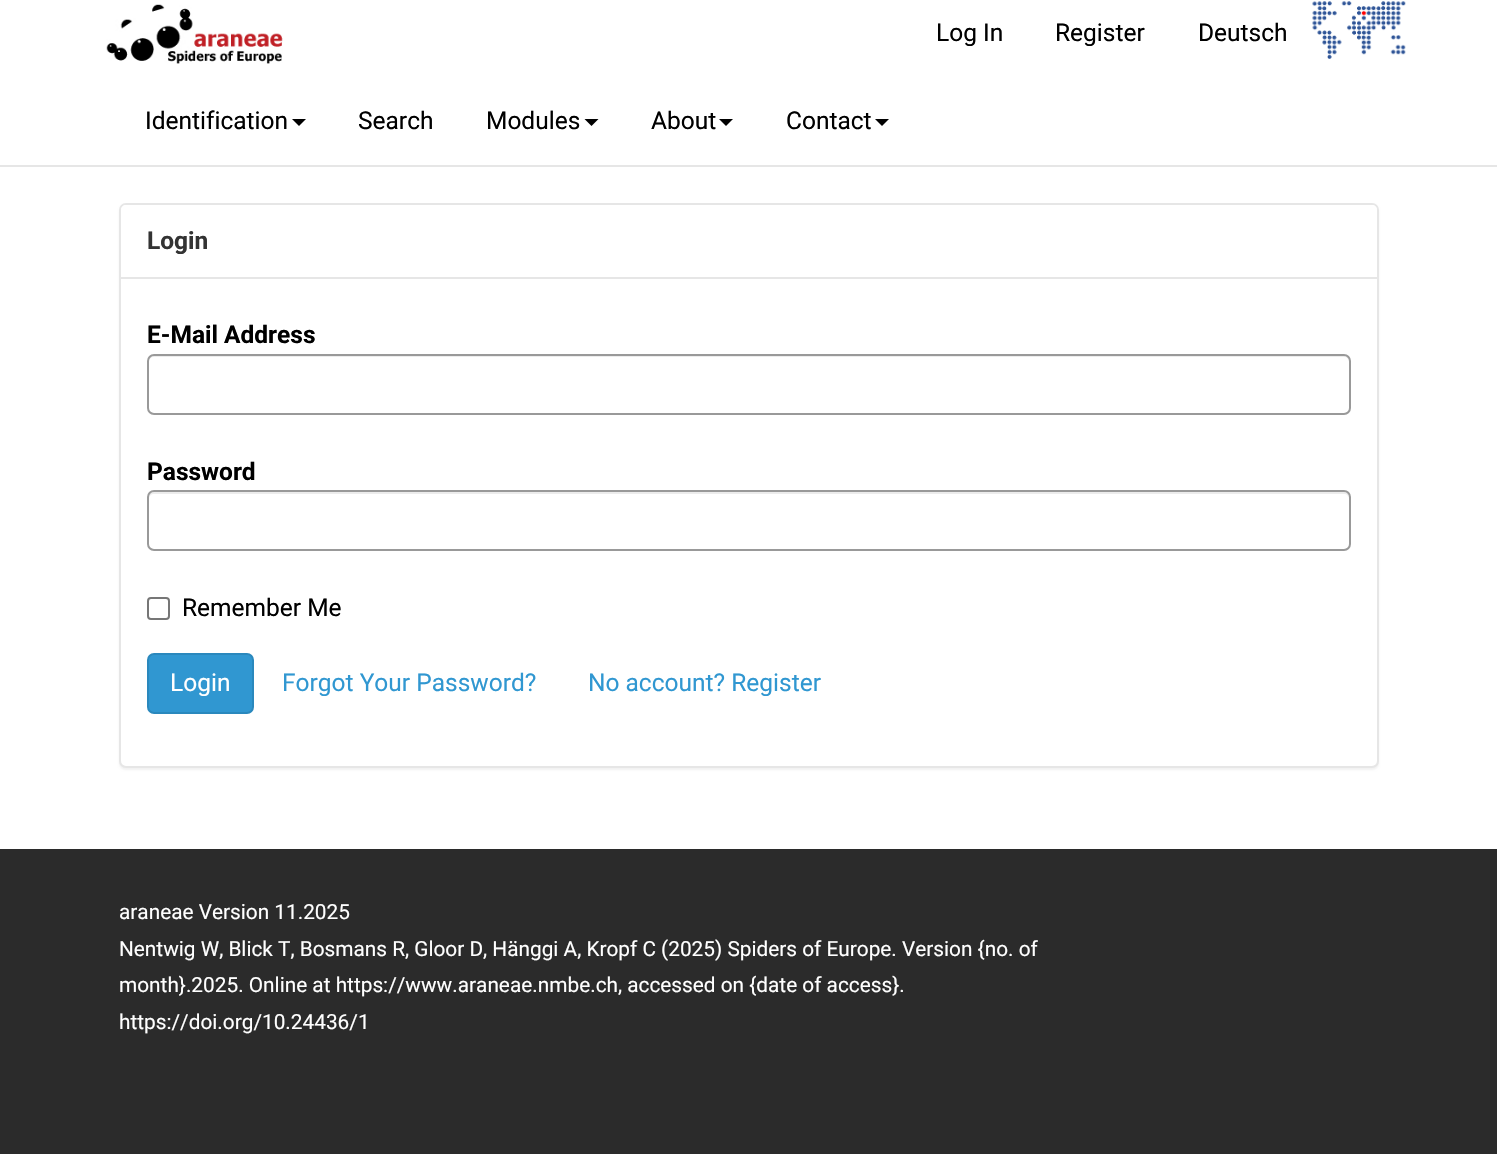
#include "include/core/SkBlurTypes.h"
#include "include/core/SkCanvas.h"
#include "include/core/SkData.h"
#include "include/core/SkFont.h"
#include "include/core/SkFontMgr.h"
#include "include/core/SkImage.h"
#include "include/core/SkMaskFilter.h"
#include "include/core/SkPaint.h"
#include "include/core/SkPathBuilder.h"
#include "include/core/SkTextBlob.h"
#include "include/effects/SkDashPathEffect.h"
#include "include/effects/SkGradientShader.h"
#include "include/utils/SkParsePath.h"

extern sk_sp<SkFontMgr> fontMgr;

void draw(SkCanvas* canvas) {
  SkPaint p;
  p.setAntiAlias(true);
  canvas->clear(SK_ColorWHITE);
  p.setColor(SkColorSetRGB(230, 230, 230));
  canvas->drawRect(SkRect::MakeLTRB(0, 165, 1497, 167), p);
  canvas->drawImageRect(SkImages::DeferredFromEncodedData(SkData::MakeFromFileName("images/1.png")), SkRect::MakeLTRB(106, 4, 283, 64), SkSamplingOptions());
  canvas->drawImageRect(SkImages::DeferredFromEncodedData(SkData::MakeFromFileName("images/2.png")), SkRect::MakeLTRB(1312, 1, 1406, 59), SkSamplingOptions());
  p.setColor(SK_ColorBLACK);
  canvas->drawPath(SkPathBuilder().moveTo(292, 119).lineTo(306, 119).lineTo(299, 126).close().detach(), p);
  canvas->drawPath(SkPathBuilder().moveTo(584.5f, 119).lineTo(598.5f, 119).lineTo(591.5f, 126).close().detach(), p);
  canvas->drawPath(SkPathBuilder().moveTo(719, 119).lineTo(733, 119).lineTo(726, 126).close().detach(), p);
  canvas->drawPath(SkPathBuilder().moveTo(875, 119).lineTo(889, 119).lineTo(882, 126).close().detach(), p);
  p.setColor(SkColorSetARGB(13, 0, 0, 0));
  p.setMaskFilter(SkMaskFilter::MakeBlur(kNormal_SkBlurStyle, 1));
  canvas->drawRoundRect(SkRect::MakeLTRB(119, 205, 1379, 770), 7, 7, p);
  p.setMaskFilter(nullptr);
  p.setColor(SK_ColorWHITE);
  canvas->drawRoundRect(SkRect::MakeLTRB(120, 204, 1378, 767), 6, 6, p);
  p.setStyle(SkPaint::kStroke_Style);
  p.setStrokeWidth(2);
  p.setColor(SkColorSetRGB(230, 230, 230));
  canvas->drawRoundRect(SkRect::MakeLTRB(120, 204, 1378, 767), 6, 6, p);
  p.setStyle(SkPaint::kFill_Style);
  p.setColor(SK_ColorWHITE);
  canvas->drawPath(SkPathBuilder().moveTo(126, 205).lineTo(1372, 205).cubicTo(1375, 205, 1377, 207, 1377, 210).lineTo(1377, 278).lineTo(121, 278).lineTo(121, 210).cubicTo(121, 207, 123, 205, 126, 205).close().detach(), p);
  p.setColor(SkColorSetRGB(230, 230, 230));
  canvas->drawRect(SkRect::MakeLTRB(121, 277, 1377, 279), p);
  p.setColor(SkColorSetRGB(236, 236, 236));
  canvas->drawPath(SkPathBuilder().moveTo(154, 357).lineTo(1344, 357).cubicTo(1347, 357, 1349, 359, 1349, 362).lineTo(1349, 360).cubicTo(1349, 357, 1347, 355, 1344, 355).lineTo(154, 355).cubicTo(151, 355, 149, 357, 149, 360).lineTo(149, 362).cubicTo(149, 359, 151, 357, 154, 357).close().detach(), p);
  p.setStyle(SkPaint::kStroke_Style);
  p.setColor(SkColorSetRGB(153, 153, 153));
  canvas->drawRoundRect(SkRect::MakeLTRB(148, 355, 1350, 414), 6, 6, p);
  p.setStyle(SkPaint::kFill_Style);
  p.setColor(SkColorSetRGB(236, 236, 236));
  canvas->drawPath(SkPathBuilder().moveTo(154, 494).lineTo(1344, 494).cubicTo(1347, 494, 1349, 496, 1349, 499).lineTo(1349, 497).cubicTo(1349, 494, 1347, 492, 1344, 492).lineTo(154, 492).cubicTo(151, 492, 149, 494, 149, 497).lineTo(149, 499).cubicTo(149, 496, 151, 494, 154, 494).close().detach(), p);
  p.setStyle(SkPaint::kStroke_Style);
  p.setColor(SkColorSetRGB(153, 153, 153));
  canvas->drawRoundRect(SkRect::MakeLTRB(148, 491, 1350, 550), 6, 6, p);
  p.setColor(SkColorSetRGB(118, 118, 118));
  canvas->drawRoundRect(SkRect::MakeLTRB(148, 598, 169, 619), 3, 3, p);
  p.setStyle(SkPaint::kFill_Style);
  p.setColor(SkColorSetRGB(48, 151, 209));
  canvas->drawRoundRect(SkRect::MakeLTRB(148, 654, 253, 713), 6, 6, p);
  p.setStyle(SkPaint::kStroke_Style);
  p.setColor(SkColorSetRGB(42, 136, 189));
  canvas->drawRoundRect(SkRect::MakeLTRB(148, 654, 253, 713), 6, 6, p);
  p.setStyle(SkPaint::kFill_Style);
  p.setColor(SkColorSetRGB(43, 43, 43));
  canvas->drawRect(SkRect::MakeLTRB(0, 849, 1497, 1154), p);
  SkFont font1(fontMgr->matchFamilyStyle("Roboto", SkFontStyle::Normal()), 24.5f);
  font1.setSubpixel(true);
  p.setColor(SK_ColorBLACK);
  canvas->drawString("Log In", 936, 41, font1, p);
  canvas->drawString("Register", 1055, 41, font1, p);
  canvas->drawString("Deutsch", 1198, 41, font1, p);
  canvas->drawString("Identification", 145, 129, font1, p);
  canvas->drawString("Search", 358, 129, font1, p);
  canvas->drawString("Modules", 486, 129, font1, p);
  canvas->drawString("About", 651, 129, font1, p);
  canvas->drawString("Contact", 786, 129, font1, p);
  SkFont font2(fontMgr->matchFamilyStyle("Roboto", SkFontStyle::Bold()), 24.5f);
  font2.setSubpixel(true);
  p.setColor(SkColorSetRGB(51, 51, 51));
  canvas->drawString("Login", 147, 249, font2, p);
  p.setColor(SK_ColorBLACK);
  canvas->drawString("E-Mail Address", 147, 343, font2, p);
  canvas->drawString("Password", 147, 480, font2, p);
  canvas->drawString("Remember Me", 182, 616, font1, p);
  p.setColor(SK_ColorWHITE);
  canvas->drawString("Login", 170, 691, font1, p);
  p.setColor(SkColorSetRGB(48, 151, 209));
  canvas->drawString("Forgot Your Password?", 282, 691, font1, p);
  canvas->drawString("No account? Register", 588, 691, font1, p);
  SkFont font3(fontMgr->matchFamilyStyle("Roboto", SkFontStyle::Normal()), 20.8f);
  font3.setSubpixel(true);
  p.setColor(SK_ColorWHITE);
  canvas->drawString("araneae Version 11.2025", 119, 919, font3, p);
  canvas->drawString("Nentwig W, Blick T, Bosmans R, Gloor D, Hänggi A, Kropf C (2025) Spiders of Europe. Version {no. of", 119, 956, font3, p);
  canvas->drawString("month}.2025. Online at https://www.araneae.nmbe.ch, accessed on {date of access}.", 119, 992, font3, p);
  canvas->drawString("https://doi.org/10.24436/1", 119, 1029, font3, p);
}
